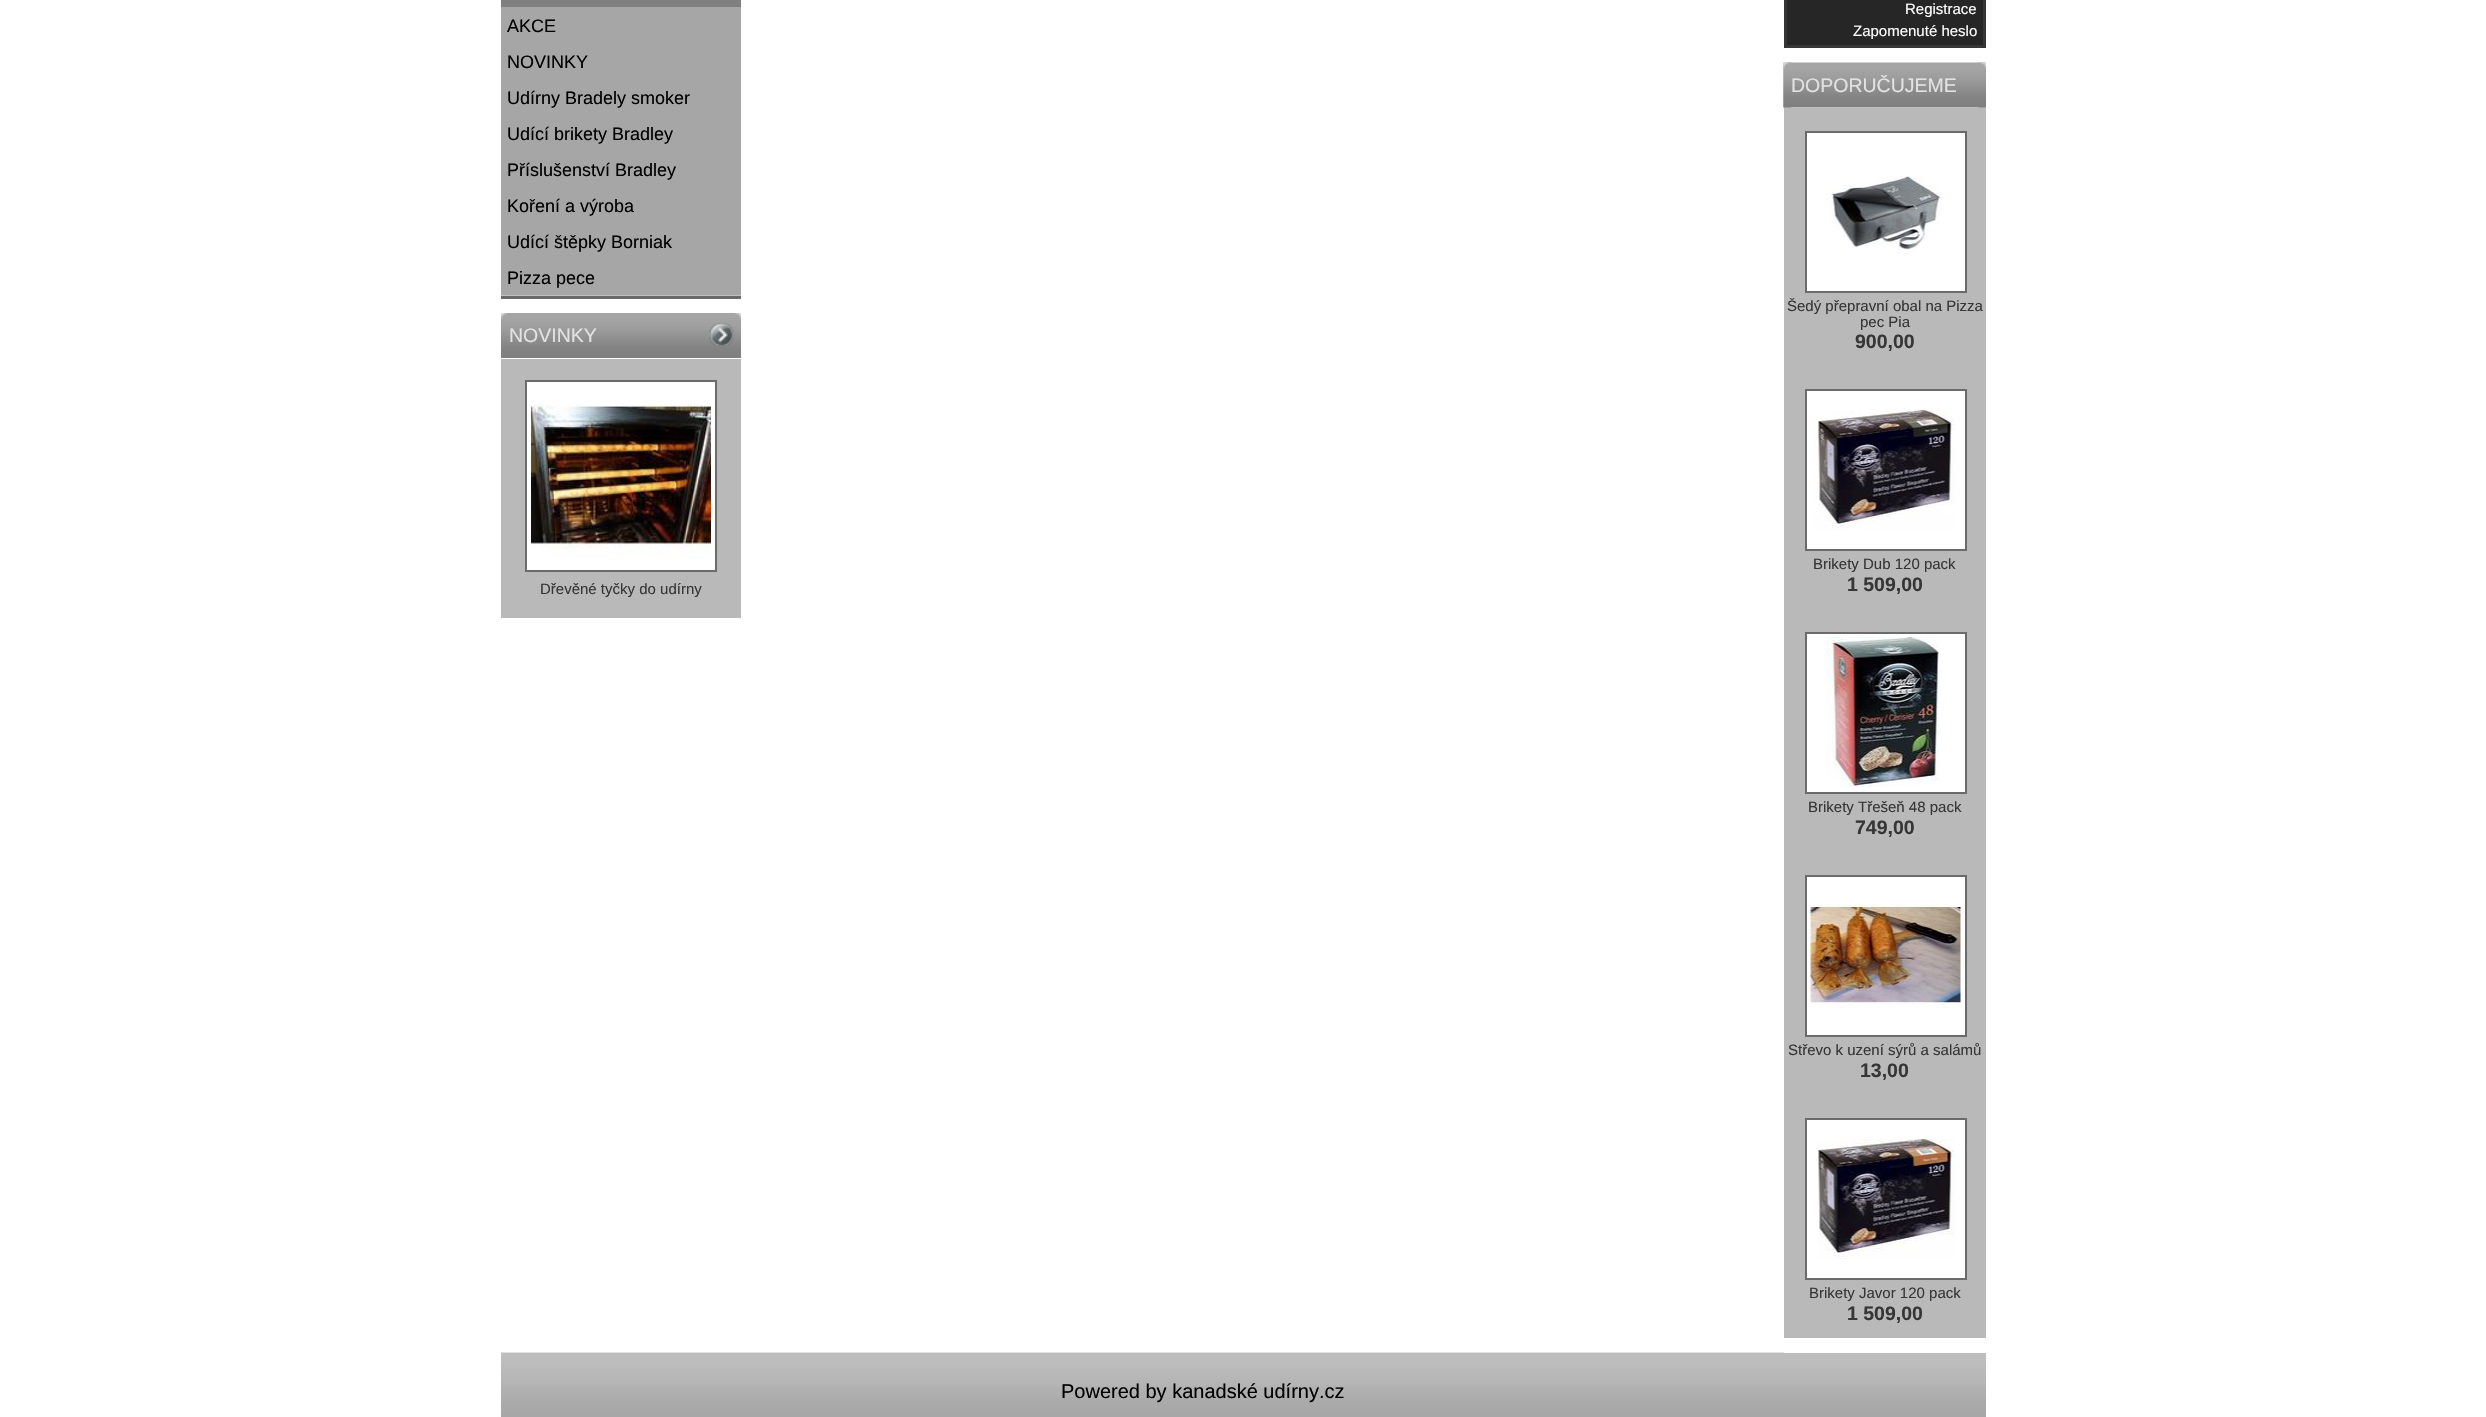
#include "include/core/SkBlurTypes.h"
#include "include/core/SkCanvas.h"
#include "include/core/SkData.h"
#include "include/core/SkFont.h"
#include "include/core/SkFontMgr.h"
#include "include/core/SkImage.h"
#include "include/core/SkMaskFilter.h"
#include "include/core/SkPaint.h"
#include "include/core/SkPathBuilder.h"
#include "include/core/SkTextBlob.h"
#include "include/effects/SkDashPathEffect.h"
#include "include/effects/SkGradientShader.h"
#include "include/utils/SkParsePath.h"

extern sk_sp<SkFontMgr> fontMgr;

void draw(SkCanvas* canvas) {
  SkPaint p;
  p.setAntiAlias(true);
  canvas->clear(SK_ColorWHITE);
  p.setColor(SkColorSetRGB(128, 128, 128));
  canvas->drawRect(SkRect::MakeLTRB(501, 0, 741, 7), p);
  p.setColor(SkColorSetRGB(106, 106, 106));
  canvas->drawRect(SkRect::MakeLTRB(501, 296, 741, 299), p);
  p.setColor(SkColorSetRGB(166, 166, 166));
  canvas->drawRect(SkRect::MakeLTRB(501, 7, 741, 295), p);
  p.setColor(SkColorSetRGB(192, 192, 192));
  canvas->drawRect(SkRect::MakeLTRB(501, 295, 741, 296), p);
  canvas->drawImageRect(SkImages::DeferredFromEncodedData(SkData::MakeFromFileName("images/1.png")), SkRect::MakeLTRB(501, 313, 741, 358), SkSamplingOptions());
  canvas->drawImageRect(SkImages::DeferredFromEncodedData(SkData::MakeFromFileName("images/2.png")), SkRect::MakeLTRB(501, 313, 507, 319), SkSamplingOptions());
  canvas->drawImageRect(SkImages::DeferredFromEncodedData(SkData::MakeFromFileName("images/3.png")), SkRect::MakeLTRB(735, 313, 741, 319), SkSamplingOptions());
  canvas->drawImageRect(SkImages::DeferredFromEncodedData(SkData::MakeFromFileName("images/4.png")), SkRect::MakeLTRB(709, 323, 734, 346), SkSamplingOptions());
  p.setColor(SkColorSetRGB(185, 185, 185));
  canvas->drawRect(SkRect::MakeLTRB(501, 359, 741, 618), p);
  p.setColor(SK_ColorWHITE);
  canvas->drawRect(SkRect::MakeLTRB(526, 381, 716, 571), p);
  p.setStyle(SkPaint::kStroke_Style);
  p.setStrokeWidth(2);
  p.setColor(SkColorSetRGB(107, 107, 107));
  canvas->drawRect(SkRect::MakeLTRB(526, 381, 716, 571), p);
  canvas->drawImageRect(SkImages::DeferredFromEncodedData(SkData::MakeFromFileName("images/5.png")), SkRect::MakeLTRB(531, 404, 711, 558), SkSamplingOptions());
  canvas->drawImageRect(SkImages::DeferredFromEncodedData(SkData::MakeFromFileName("images/14.png")), SkRect::MakeLTRB(501, 1352, 1986, 1417), SkSamplingOptions());
  p.setStyle(SkPaint::kFill_Style);
  p.setColor(SK_ColorWHITE);
  canvas->drawRect(SkRect::MakeLTRB(1784, 1352, 1986, 1353), p);
  p.setColor(SkColorSetRGB(38, 38, 38));
  canvas->drawRect(SkRect::MakeLTRB(1785.5f, -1.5f, 1984.5f, 46.5f), p);
  p.setStyle(SkPaint::kStroke_Style);
  p.setStrokeWidth(3);
  p.setColor(SkColorSetRGB(54, 54, 54));
  canvas->drawRect(SkRect::MakeLTRB(1785.5f, -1.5f, 1984.5f, 46.5f), p);
  canvas->drawImageRect(SkImages::DeferredFromEncodedData(SkData::MakeFromFileName("images/6.png")), SkRect::MakeLTRB(1783, 62, 1986, 108), SkSamplingOptions());
  canvas->drawImageRect(SkImages::DeferredFromEncodedData(SkData::MakeFromFileName("images/7.png")), SkRect::MakeLTRB(1783, 62, 1791, 108), SkSamplingOptions());
  canvas->drawImageRect(SkImages::DeferredFromEncodedData(SkData::MakeFromFileName("images/8.png")), SkRect::MakeLTRB(1978, 62, 1986, 108), SkSamplingOptions());
  p.setStyle(SkPaint::kFill_Style);
  p.setColor(SkColorSetRGB(185, 185, 185));
  canvas->drawRect(SkRect::MakeLTRB(1784, 108, 1986, 1338), p);
  p.setColor(SK_ColorWHITE);
  canvas->drawRect(SkRect::MakeLTRB(1806, 132, 1966, 292), p);
  p.setStyle(SkPaint::kStroke_Style);
  p.setStrokeWidth(2);
  p.setColor(SkColorSetRGB(107, 107, 107));
  canvas->drawRect(SkRect::MakeLTRB(1806, 132, 1966, 292), p);
  canvas->drawImageRect(SkImages::DeferredFromEncodedData(SkData::MakeFromFileName("images/9.png")), SkRect::MakeLTRB(1826, 176, 1945, 254), SkSamplingOptions());
  p.setStyle(SkPaint::kFill_Style);
  p.setColor(SK_ColorWHITE);
  canvas->drawRect(SkRect::MakeLTRB(1806, 390, 1966, 550), p);
  p.setStyle(SkPaint::kStroke_Style);
  p.setColor(SkColorSetRGB(107, 107, 107));
  canvas->drawRect(SkRect::MakeLTRB(1806, 390, 1966, 550), p);
  canvas->drawImageRect(SkImages::DeferredFromEncodedData(SkData::MakeFromFileName("images/10.png")), SkRect::MakeLTRB(1812, 409, 1955, 530), SkSamplingOptions());
  p.setStyle(SkPaint::kFill_Style);
  p.setColor(SK_ColorWHITE);
  canvas->drawRect(SkRect::MakeLTRB(1806, 633, 1966, 793), p);
  p.setStyle(SkPaint::kStroke_Style);
  p.setColor(SkColorSetRGB(107, 107, 107));
  canvas->drawRect(SkRect::MakeLTRB(1806, 633, 1966, 793), p);
  canvas->drawImageRect(SkImages::DeferredFromEncodedData(SkData::MakeFromFileName("images/11.png")), SkRect::MakeLTRB(1826, 637, 1939, 787), SkSamplingOptions());
  p.setStyle(SkPaint::kFill_Style);
  p.setColor(SK_ColorWHITE);
  canvas->drawRect(SkRect::MakeLTRB(1806, 876, 1966, 1036), p);
  p.setStyle(SkPaint::kStroke_Style);
  p.setColor(SkColorSetRGB(107, 107, 107));
  canvas->drawRect(SkRect::MakeLTRB(1806, 876, 1966, 1036), p);
  canvas->drawImageRect(SkImages::DeferredFromEncodedData(SkData::MakeFromFileName("images/12.png")), SkRect::MakeLTRB(1810, 903, 1961, 1008), SkSamplingOptions());
  p.setStyle(SkPaint::kFill_Style);
  p.setColor(SK_ColorWHITE);
  canvas->drawRect(SkRect::MakeLTRB(1806, 1119, 1966, 1279), p);
  p.setStyle(SkPaint::kStroke_Style);
  p.setColor(SkColorSetRGB(107, 107, 107));
  canvas->drawRect(SkRect::MakeLTRB(1806, 1119, 1966, 1279), p);
  canvas->drawImageRect(SkImages::DeferredFromEncodedData(SkData::MakeFromFileName("images/13.png")), SkRect::MakeLTRB(1818, 1139, 1955, 1259), SkSamplingOptions());
  SkFont font1(fontMgr->matchFamilyStyle("Liberation Sans", SkFontStyle::Normal()), 18);
  font1.setSubpixel(true);
  p.setStyle(SkPaint::kFill_Style);
  p.setColor(SK_ColorBLACK);
  canvas->drawString("AKCE", 507, 32, font1, p);
  canvas->drawString("NOVINKY", 507, 68, font1, p);
  canvas->drawString("Udírny Bradely smoker", 507, 104, font1, p);
  canvas->drawString("Udící brikety Bradley", 507, 140, font1, p);
  canvas->drawString("Příslušenství Bradley", 507, 176, font1, p);
  canvas->drawString("Koření a výroba", 507, 212, font1, p);
  canvas->drawString("Udící štěpky Borniak", 507, 248, font1, p);
  canvas->drawString("Pizza pece", 507, 284, font1, p);
  SkFont font2(fontMgr->matchFamilyStyle("Liberation Sans", SkFontStyle::Normal()), 19.5f);
  font2.setSubpixel(true);
  p.setColor(SkColorSetRGB(226, 226, 226));
  canvas->drawString("NOVINKY", 509, 342, font2, p);
  SkFont font3(fontMgr->matchFamilyStyle("Liberation Sans", SkFontStyle::Normal()), 15);
  font3.setSubpixel(true);
  p.setColor(SkColorSetRGB(54, 54, 54));
  canvas->drawString("Dřevěné tyčky do udírny", 540, 594, font3, p);
  p.setColor(SK_ColorWHITE);
  canvas->drawString("Registrace", 1905, 14, font3, p);
  canvas->drawString("Zapomenuté heslo", 1853, 36, font3, p);
  p.setColor(SkColorSetRGB(226, 226, 226));
  canvas->drawString("DOPORUČUJEME", 1791, 92, font2, p);
  p.setColor(SkColorSetRGB(54, 54, 54));
  canvas->drawString("Šedý přepravní obal na Pizza", 1787, 311, font3, p);
  canvas->drawString("pec Pia", 1860, 327, font3, p);
  SkFont font4(fontMgr->matchFamilyStyle("Liberation Sans", SkFontStyle::Bold()), 19.5f);
  font4.setSubpixel(true);
  canvas->drawString("900,00", 1855, 348, font4, p);
  canvas->drawString("Brikety Dub 120 pack", 1813, 569, font3, p);
  canvas->drawString("1 509,00", 1847, 591, font4, p);
  canvas->drawString("Brikety Třešeň 48 pack", 1808, 812, font3, p);
  canvas->drawString("749,00", 1855, 834, font4, p);
  canvas->drawString("Střevo k uzení sýrů a salámů", 1788, 1055, font3, p);
  canvas->drawString("13,00", 1860, 1077, font4, p);
  canvas->drawString("Brikety Javor 120 pack", 1809, 1298, font3, p);
  canvas->drawString("1 509,00", 1847, 1320, font4, p);
  SkFont font5(fontMgr->matchFamilyStyle("Liberation Sans", SkFontStyle::Normal()), 20);
  font5.setSubpixel(true);
  p.setColor(SK_ColorBLACK);
  canvas->drawString("Powered by kanadské udírny.cz", 1061, 1398, font5, p);
}
